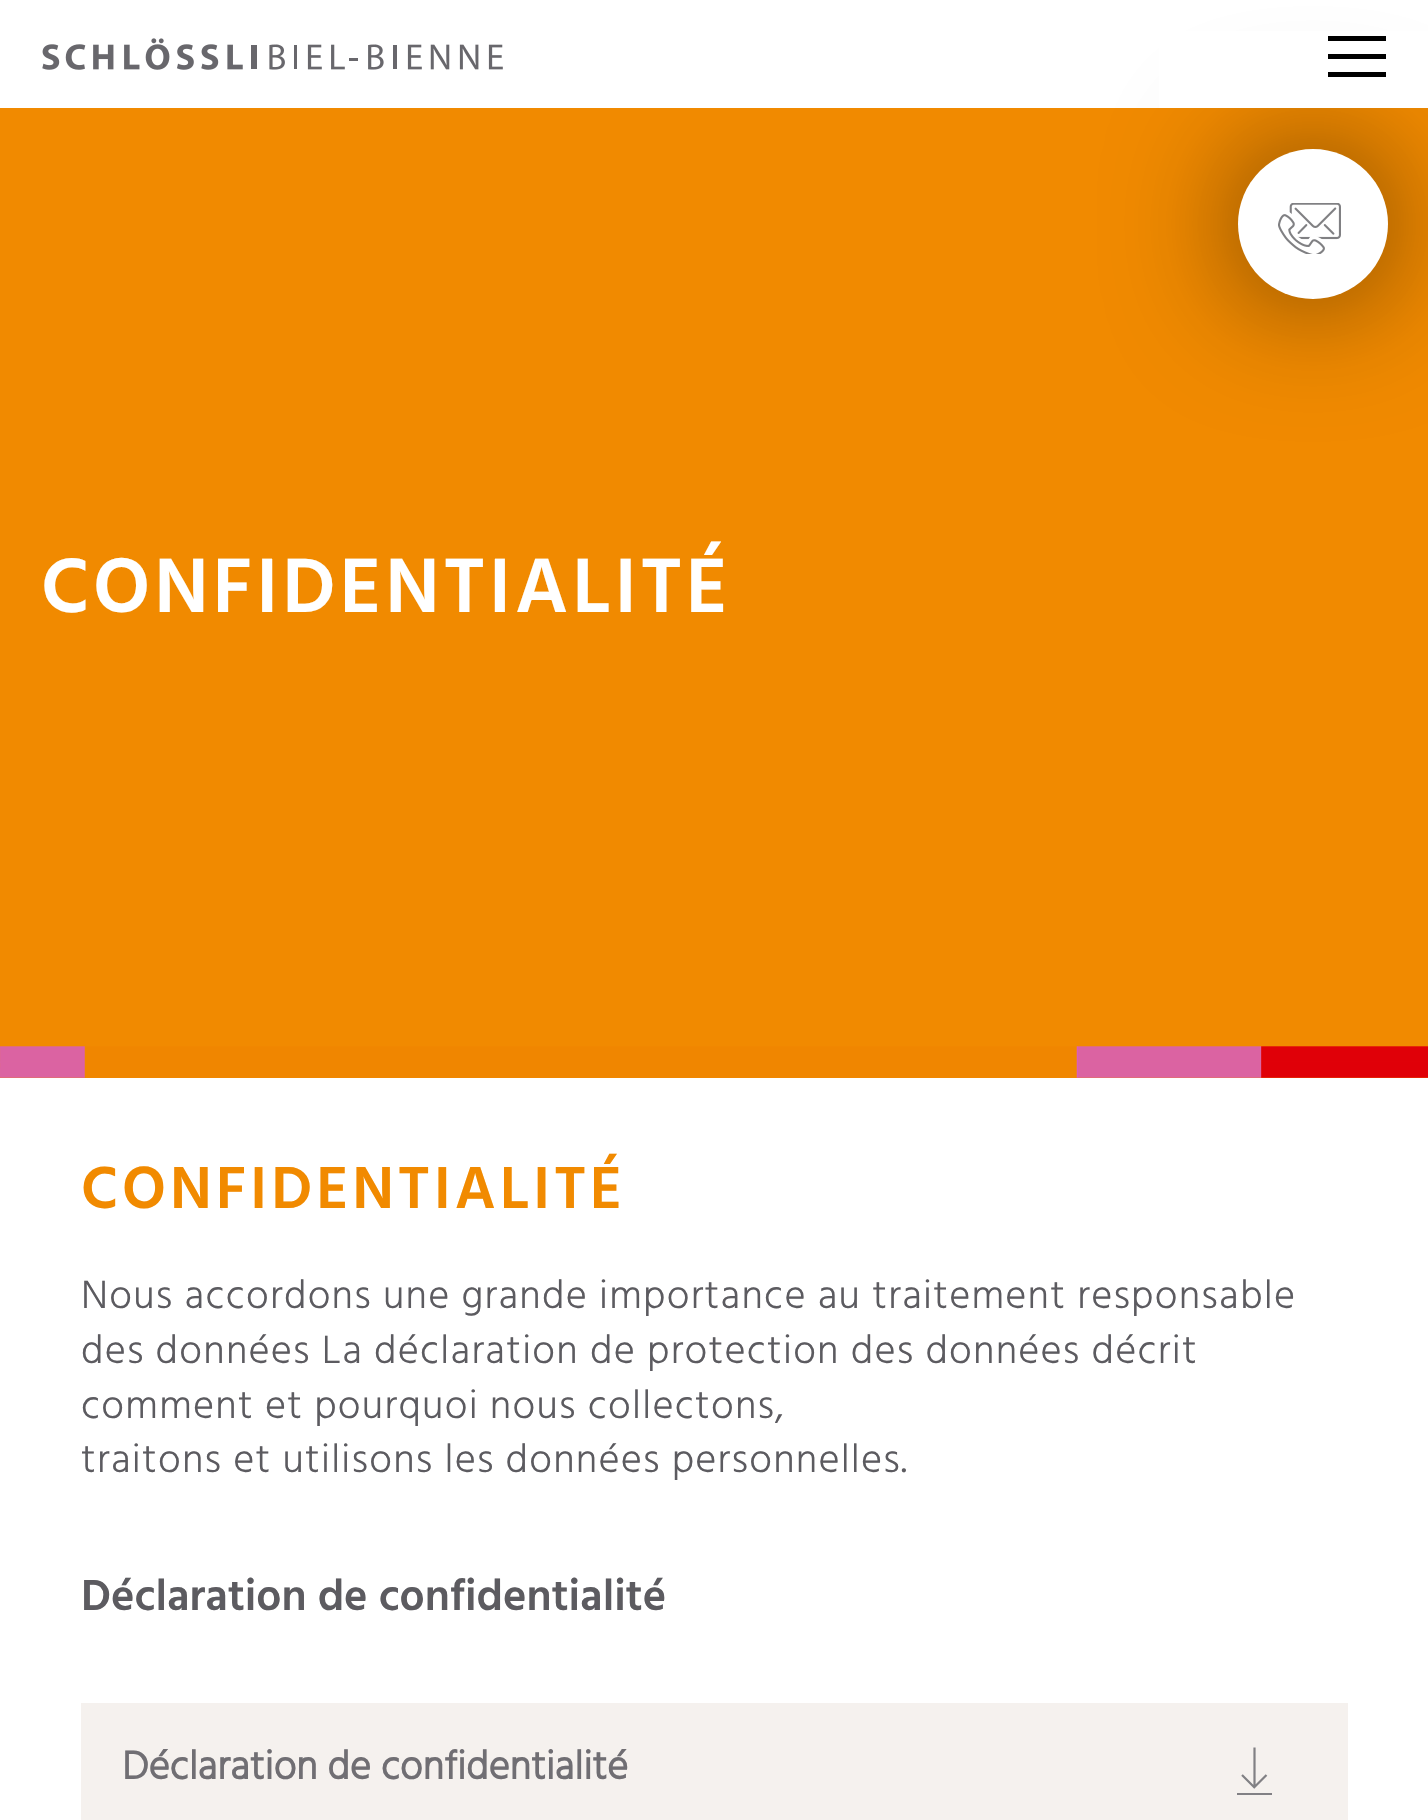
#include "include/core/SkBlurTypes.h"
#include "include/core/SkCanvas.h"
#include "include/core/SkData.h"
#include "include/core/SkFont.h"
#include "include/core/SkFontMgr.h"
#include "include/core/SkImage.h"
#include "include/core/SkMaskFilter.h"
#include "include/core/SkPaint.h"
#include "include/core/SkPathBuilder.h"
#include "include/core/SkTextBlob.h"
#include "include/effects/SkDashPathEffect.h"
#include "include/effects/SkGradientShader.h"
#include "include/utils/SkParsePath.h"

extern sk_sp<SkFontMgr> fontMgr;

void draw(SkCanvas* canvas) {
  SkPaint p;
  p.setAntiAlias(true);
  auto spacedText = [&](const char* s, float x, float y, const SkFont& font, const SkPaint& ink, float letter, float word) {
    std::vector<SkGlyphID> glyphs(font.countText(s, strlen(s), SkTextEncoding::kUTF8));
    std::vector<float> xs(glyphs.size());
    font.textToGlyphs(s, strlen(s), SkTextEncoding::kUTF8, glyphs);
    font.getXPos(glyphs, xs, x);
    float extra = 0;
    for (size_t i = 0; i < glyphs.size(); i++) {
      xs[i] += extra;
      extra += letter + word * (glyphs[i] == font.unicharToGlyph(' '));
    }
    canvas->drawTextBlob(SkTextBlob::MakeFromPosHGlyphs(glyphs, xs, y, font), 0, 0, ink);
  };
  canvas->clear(SK_ColorWHITE);
  p.setColor(SkColorSetRGB(241, 138, 0));
  canvas->drawRect(SkRect::MakeLTRB(0, 108, 1428, 1078), p);
  p.setColor(SkColorSetARGB(150, 0, 0, 0));
  p.setMaskFilter(SkMaskFilter::MakeBlur(kNormal_SkBlurStyle, 64));
  canvas->drawRoundRect(SkRect::MakeLTRB(1238, 149, 1388, 299), 75, 75, p);
  p.setMaskFilter(nullptr);
  p.setColor(SK_ColorWHITE);
  canvas->drawRect(SkRect::MakeLTRB(1159, 31, 1428, 108), p);
  canvas->drawImageRect(SkImages::DeferredFromEncodedData(SkData::MakeFromFileName("images/1.png")), SkRect::MakeLTRB(42, 38, 503, 70), SkSamplingOptions());
  p.setColor(SK_ColorBLACK);
  canvas->drawRect(SkRect::MakeLTRB(1328, 36, 1386, 41), p);
  canvas->drawRect(SkRect::MakeLTRB(1328, 54, 1386, 59), p);
  canvas->drawRect(SkRect::MakeLTRB(1328, 72, 1386, 77), p);
  p.setColor(SK_ColorWHITE);
  canvas->drawCircle(1313, 224, 75, p);
  canvas->drawImageRect(SkImages::DeferredFromEncodedData(SkData::MakeFromFileName("images/2.png")), SkRect::MakeLTRB(1278, 203, 1341, 254), SkSamplingOptions());
  canvas->drawImageRect(SkImages::DeferredFromEncodedData(SkData::MakeFromFileName("images/3.png")), SkRect::MakeLTRB(0, 1046, 1428, 1078), SkSamplingOptions());
  p.setColor(SkColorSetRGB(245, 241, 238));
  canvas->drawRect(SkRect::MakeLTRB(81, 1703, 1348, 1820), p);
  p.setColor(SkColorSetRGB(129, 128, 132));
  canvas->drawRect(SkRect::MakeLTRB(1237, 1793, 1272, 1795), p);
  p.setStyle(SkPaint::kStroke_Style);
  p.setStrokeWidth(2.2f);
  p.setStrokeJoin(SkPaint::kRound_Join);
  canvas->drawPath(SkPathBuilder().moveTo(1254.5f, 1747.5f).lineTo(1254.5f, 1787).moveTo(1242, 1775).lineTo(1255, 1788).moveTo(1266.5f, 1775).lineTo(1253.5f, 1788).detach(), p);
  SkFont font1(fontMgr->matchFamilyStyle("Hind", SkFontStyle(600, SkFontStyle::kNormal_Width, SkFontStyle::kUpright_Slant)), 79);
  font1.setSubpixel(true);
  p.setStyle(SkPaint::kFill_Style);
  p.setColor(SK_ColorWHITE);
  spacedText("CONFIDENTIALITÉ", 41, 612, font1, p, 4, 0);
  SkFont font2(fontMgr->matchFamilyStyle("Hind", SkFontStyle(600, SkFontStyle::kNormal_Width, SkFontStyle::kUpright_Slant)), 60.75f);
  font2.setSubpixel(true);
  p.setColor(SkColorSetRGB(241, 138, 0));
  spacedText("CONFIDENTIALITÉ", 81, 1208, font2, p, 4, 0);
  SkFont font3(fontMgr->matchFamilyStyle("Hind", SkFontStyle(300, SkFontStyle::kNormal_Width, SkFontStyle::kUpright_Slant)), 40.5f);
  font3.setSubpixel(true);
  p.setColor(SkColorSetRGB(92, 91, 96));
  spacedText("Nous accordons une grande importance au traitement responsable", 81, 1308, font3, p, 1.22f, 0);
  spacedText("des données La déclaration de protection des données décrit", 81, 1363, font3, p, 1.22f, 0);
  spacedText("comment et pourquoi nous collectons,", 81, 1418, font3, p, 1.22f, 0);
  spacedText("traitons et utilisons les données personnelles.", 81, 1472, font3, p, 1.22f, 0);
  SkFont font4(fontMgr->matchFamilyStyle("Hind", SkFontStyle(600, SkFontStyle::kNormal_Width, SkFontStyle::kUpright_Slant)), 44.5f);
  font4.setSubpixel(true);
  canvas->drawString("Déclaration de confidentialité", 81, 1610, font4, p);
  SkFont font5(fontMgr->matchFamilyStyle("Hind", SkFontStyle::Bold()), 40.5f);
  font5.setSubpixel(true);
  p.setColor(SkColorSetRGB(112, 110, 115));
  canvas->drawString("Déclaration de confidentialité", 122, 1779, font5, p);
}
